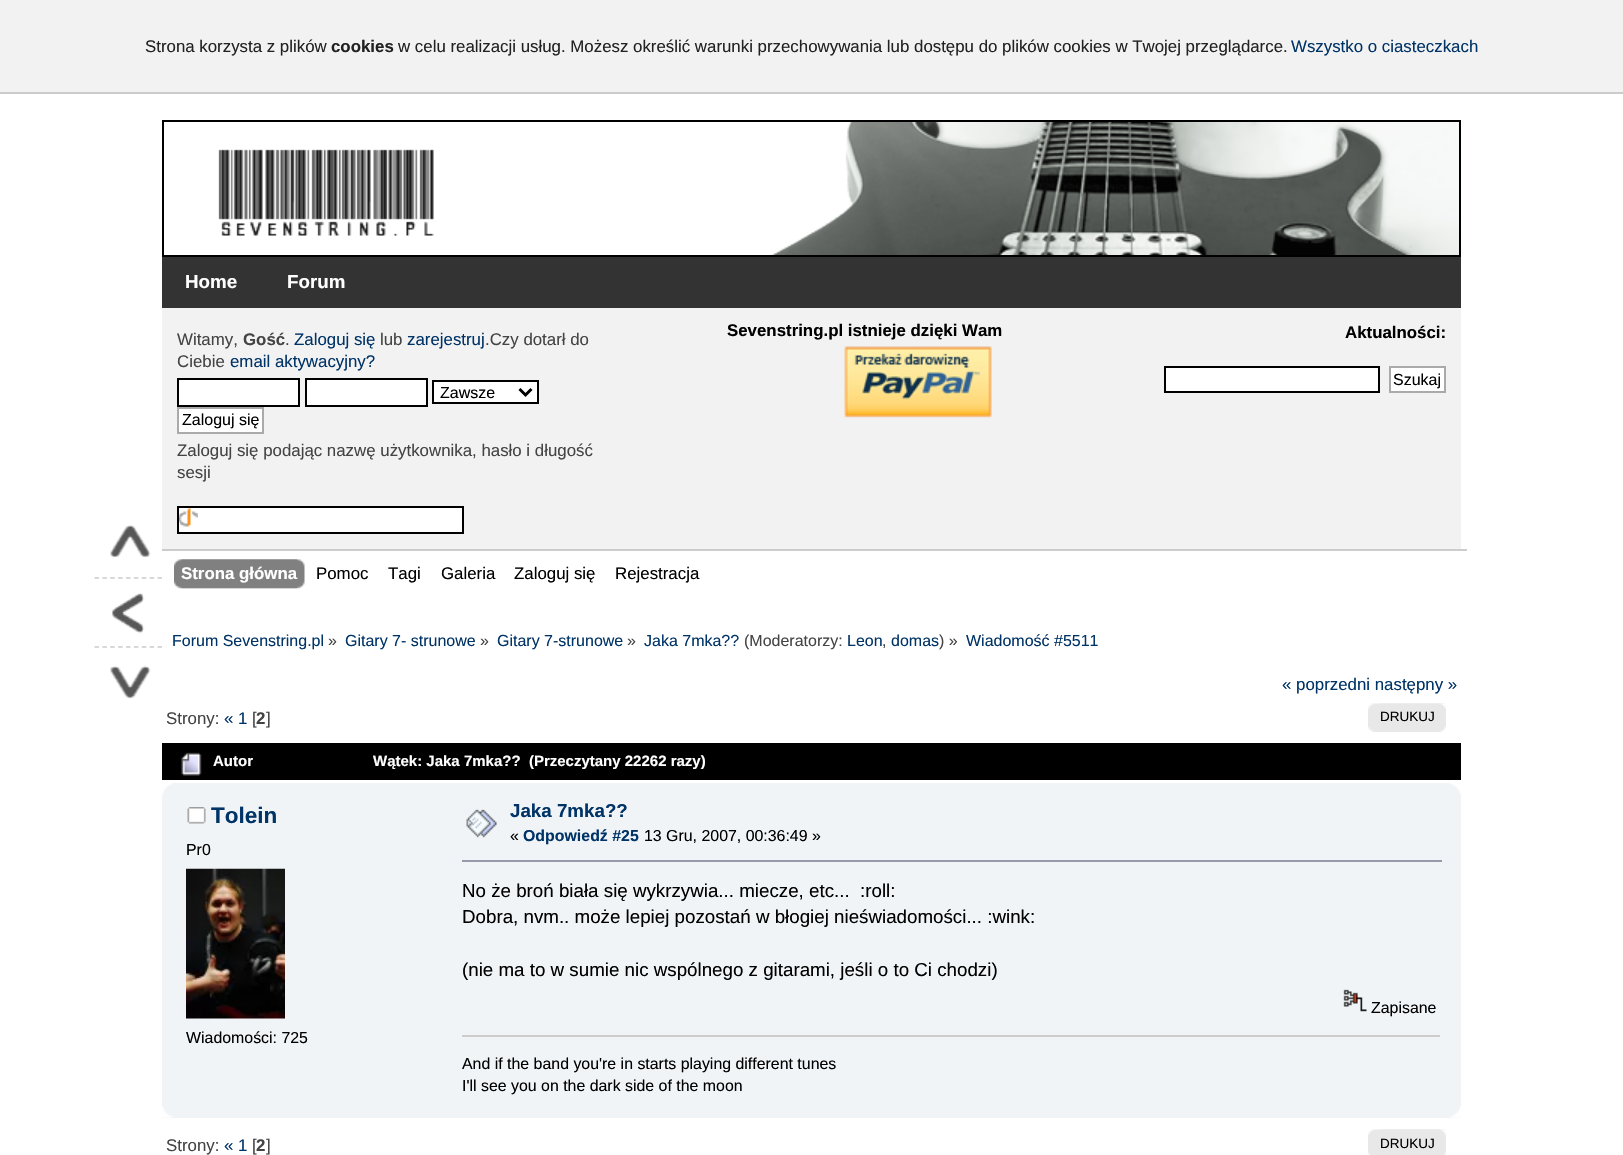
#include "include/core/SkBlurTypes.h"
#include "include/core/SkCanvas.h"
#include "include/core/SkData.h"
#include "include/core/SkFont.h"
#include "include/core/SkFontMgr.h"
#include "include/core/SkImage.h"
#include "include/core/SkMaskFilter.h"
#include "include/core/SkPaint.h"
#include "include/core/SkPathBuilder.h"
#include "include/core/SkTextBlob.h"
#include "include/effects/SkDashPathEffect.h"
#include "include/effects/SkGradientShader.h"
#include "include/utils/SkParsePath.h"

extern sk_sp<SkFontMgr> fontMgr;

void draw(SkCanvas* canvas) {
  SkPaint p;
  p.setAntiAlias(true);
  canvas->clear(SK_ColorWHITE);
  p.setColor(SkColorSetRGB(242, 242, 242));
  canvas->drawRect(SkRect::MakeLTRB(0, 0, 1623, 92), p);
  p.setColor(SkColorSetRGB(204, 204, 204));
  canvas->drawRect(SkRect::MakeLTRB(0, 92, 1623, 94), p);
  canvas->drawImageRect(SkImages::DeferredFromEncodedData(SkData::MakeFromFileName("images/1.png")), SkRect::MakeLTRB(770, 122, 1459, 255), SkSamplingOptions());
  p.setStyle(SkPaint::kStroke_Style);
  p.setStrokeWidth(2);
  p.setColor(SK_ColorBLACK);
  canvas->drawRect(SkRect::MakeLTRB(163, 121, 1460, 256), p);
  canvas->drawImageRect(SkImages::DeferredFromEncodedData(SkData::MakeFromFileName("images/2.png")), SkRect::MakeLTRB(218, 149, 434, 236), SkSamplingOptions());
  p.setStyle(SkPaint::kFill_Style);
  p.setColor(SkColorSetRGB(51, 51, 51));
  canvas->drawRect(SkRect::MakeLTRB(162, 257, 1461, 308), p);
  p.setColor(SkColorSetRGB(242, 242, 242));
  canvas->drawRect(SkRect::MakeLTRB(162, 308, 1461, 549), p);
  p.setColor(SK_ColorWHITE);
  canvas->drawRect(SkRect::MakeLTRB(178, 379, 299, 406), p);
  p.setStyle(SkPaint::kStroke_Style);
  p.setColor(SK_ColorBLACK);
  canvas->drawRect(SkRect::MakeLTRB(178, 379, 299, 406), p);
  p.setStyle(SkPaint::kFill_Style);
  p.setColor(SK_ColorWHITE);
  canvas->drawRect(SkRect::MakeLTRB(306, 379, 427, 406), p);
  p.setStyle(SkPaint::kStroke_Style);
  p.setColor(SK_ColorBLACK);
  canvas->drawRect(SkRect::MakeLTRB(306, 379, 427, 406), p);
  p.setStyle(SkPaint::kFill_Style);
  p.setColor(SK_ColorWHITE);
  canvas->drawRect(SkRect::MakeLTRB(433, 381, 538, 403), p);
  p.setStyle(SkPaint::kStroke_Style);
  p.setColor(SK_ColorBLACK);
  canvas->drawRect(SkRect::MakeLTRB(433, 381, 538, 403), p);
  p.setStrokeWidth(3);
  canvas->drawPath(SkPathBuilder().moveTo(519.5f, 389).lineTo(525.5f, 395).lineTo(531.5f, 389).detach(), p);
  p.setStyle(SkPaint::kFill_Style);
  p.setColor(SK_ColorWHITE);
  canvas->drawRect(SkRect::MakeLTRB(178, 408, 263, 433), p);
  p.setStyle(SkPaint::kStroke_Style);
  p.setStrokeWidth(2);
  p.setColor(SkColorSetRGB(170, 170, 170));
  canvas->drawRect(SkRect::MakeLTRB(178, 408, 263, 433), p);
  p.setStyle(SkPaint::kFill_Style);
  p.setColor(SK_ColorWHITE);
  canvas->drawRect(SkRect::MakeLTRB(179, 508, 462, 532), p);
  canvas->drawImageRect(SkImages::DeferredFromEncodedData(SkData::MakeFromFileName("images/3.png")), SkRect::MakeLTRB(179, 508, 198, 527), SkSamplingOptions());
  p.setStyle(SkPaint::kStroke_Style);
  p.setColor(SK_ColorBLACK);
  canvas->drawRect(SkRect::MakeLTRB(178, 507, 463, 533), p);
  canvas->drawImageRect(SkImages::DeferredFromEncodedData(SkData::MakeFromFileName("images/4.png")), SkRect::MakeLTRB(844, 346, 992, 418), SkSamplingOptions());
  p.setStyle(SkPaint::kFill_Style);
  p.setColor(SK_ColorWHITE);
  canvas->drawRect(SkRect::MakeLTRB(1165, 367, 1379, 392), p);
  p.setStyle(SkPaint::kStroke_Style);
  p.setColor(SK_ColorBLACK);
  canvas->drawRect(SkRect::MakeLTRB(1165, 367, 1379, 392), p);
  p.setStyle(SkPaint::kFill_Style);
  p.setColor(SK_ColorWHITE);
  canvas->drawRect(SkRect::MakeLTRB(1390, 367, 1445, 392), p);
  p.setStyle(SkPaint::kStroke_Style);
  p.setColor(SkColorSetRGB(170, 170, 170));
  canvas->drawRect(SkRect::MakeLTRB(1390, 367, 1445, 392), p);
  p.setStyle(SkPaint::kFill_Style);
  p.setColor(SkColorSetRGB(204, 204, 204));
  canvas->drawRect(SkRect::MakeLTRB(162, 549, 1467, 551), p);
  canvas->drawImageRect(SkImages::DeferredFromEncodedData(SkData::MakeFromFileName("images/5.png")), SkRect::MakeLTRB(181, 559, 305, 589), SkSamplingOptions());
  canvas->drawImageRect(SkImages::DeferredFromEncodedData(SkData::MakeFromFileName("images/6.png")), SkRect::MakeLTRB(174, 559, 297, 589), SkSamplingOptions());
  canvas->drawImageRect(SkImages::DeferredFromEncodedData(SkData::MakeFromFileName("images/7.png")), SkRect::MakeLTRB(110, 524, 151, 558), SkSamplingOptions());
  p.setStyle(SkPaint::kStroke_Style);
  p.setStrokeWidth(1.5f);
  p.setPathEffect(SkDashPathEffect::Make({{4.5f, 3.38f}}, 0));
  canvas->drawPath(SkPathBuilder().moveTo(94.5f, 578).lineTo(162, 578).detach(), p);
  p.setPathEffect(nullptr);
  canvas->drawImageRect(SkImages::DeferredFromEncodedData(SkData::MakeFromFileName("images/8.png")), SkRect::MakeLTRB(111, 593, 145, 634), SkSamplingOptions());
  p.setPathEffect(SkDashPathEffect::Make({{4.5f, 3.38f}}, 0));
  canvas->drawPath(SkPathBuilder().moveTo(94.5f, 647).lineTo(162, 647).detach(), p);
  p.setPathEffect(nullptr);
  canvas->drawImageRect(SkImages::DeferredFromEncodedData(SkData::MakeFromFileName("images/9.png")), SkRect::MakeLTRB(110, 665, 151, 699), SkSamplingOptions());
  canvas->drawImageRect(SkImages::DeferredFromEncodedData(SkData::MakeFromFileName("images/10.png")), SkRect::MakeLTRB(1368, 703, 1446, 732), SkSamplingOptions());
  canvas->drawImageRect(SkImages::DeferredFromEncodedData(SkData::MakeFromFileName("images/11.png")), SkRect::MakeLTRB(1380, 703, 1446, 732), SkSamplingOptions());
  p.setStyle(SkPaint::kFill_Style);
  p.setColor(SK_ColorBLACK);
  canvas->drawRect(SkRect::MakeLTRB(162, 743, 1461, 780), p);
  canvas->drawImageRect(SkImages::DeferredFromEncodedData(SkData::MakeFromFileName("images/12.png")), SkRect::MakeLTRB(181, 752, 202, 776), SkSamplingOptions());
  p.setColor(SkColorSetRGB(240, 244, 247));
  canvas->drawRect(SkRect::MakeLTRB(162, 783, 1461, 1118), p);
  canvas->drawImageRect(SkImages::DeferredFromEncodedData(SkData::MakeFromFileName("images/13.png")), SkRect::MakeLTRB(162, 783, 174, 795), SkSamplingOptions());
  canvas->drawImageRect(SkImages::DeferredFromEncodedData(SkData::MakeFromFileName("images/14.png")), SkRect::MakeLTRB(1449, 783, 1461, 795), SkSamplingOptions());
  canvas->drawImageRect(SkImages::DeferredFromEncodedData(SkData::MakeFromFileName("images/15.png")), SkRect::MakeLTRB(187, 807, 206, 824), SkSamplingOptions());
  canvas->drawImageRect(SkImages::DeferredFromEncodedData(SkData::MakeFromFileName("images/16.png")), SkRect::MakeLTRB(186, 868, 285, 1019), SkSamplingOptions());
  canvas->drawImageRect(SkImages::DeferredFromEncodedData(SkData::MakeFromFileName("images/17.png")), SkRect::MakeLTRB(466, 809, 497, 838), SkSamplingOptions());
  p.setColor(SkColorSetRGB(153, 153, 170));
  canvas->drawRect(SkRect::MakeLTRB(462, 860, 1442, 862), p);
  canvas->drawImageRect(SkImages::DeferredFromEncodedData(SkData::MakeFromFileName("images/18.png")), SkRect::MakeLTRB(1343, 989, 1367, 1012), SkSamplingOptions());
  p.setColor(SkColorSetRGB(204, 204, 204));
  canvas->drawRect(SkRect::MakeLTRB(462, 1035, 1440, 1037), p);
  canvas->drawImageRect(SkImages::DeferredFromEncodedData(SkData::MakeFromFileName("images/19.png")), SkRect::MakeLTRB(162, 1106, 173, 1118), SkSamplingOptions());
  canvas->drawImageRect(SkImages::DeferredFromEncodedData(SkData::MakeFromFileName("images/20.png")), SkRect::MakeLTRB(1450, 1106, 1461, 1118), SkSamplingOptions());
  canvas->drawImageRect(SkImages::DeferredFromEncodedData(SkData::MakeFromFileName("images/21.png")), SkRect::MakeLTRB(1368, 1129, 1446, 1155), SkSamplingOptions());
  canvas->drawImageRect(SkImages::DeferredFromEncodedData(SkData::MakeFromFileName("images/22.png")), SkRect::MakeLTRB(1380, 1129, 1446, 1155), SkSamplingOptions());
  SkFont font1(fontMgr->matchFamilyStyle("Liberation Sans", SkFontStyle::Normal()), 16.85f);
  font1.setSubpixel(true);
  p.setColor(SkColorSetRGB(34, 34, 34));
  canvas->drawString("Strona korzysta z plików", 145, 52, font1, p);
  SkFont font2(fontMgr->matchFamilyStyle("Liberation Sans", SkFontStyle::Bold()), 16.85f);
  font2.setSubpixel(true);
  canvas->drawString("cookies", 331, 52, font2, p);
  canvas->drawString("w celu realizacji usług. Możesz określić warunki przechowywania lub dostępu do plików cookies w Twojej przeglądarce.", 398, 52, font1, p);
  p.setColor(SkColorSetRGB(0, 51, 102));
  canvas->drawString("Wszystko o ciasteczkach", 1291, 52, font1, p);
  SkFont font3(fontMgr->matchFamilyStyle("Liberation Sans", SkFontStyle::Bold()), 18.75f);
  font3.setSubpixel(true);
  p.setColor(SK_ColorWHITE);
  canvas->drawString("Home", 185, 288, font3, p);
  canvas->drawString("Forum", 287, 288, font3, p);
  p.setColor(SkColorSetRGB(68, 68, 68));
  canvas->drawString("Witamy,", 177, 345, font1, p);
  canvas->drawString("Gość", 243, 345, font2, p);
  canvas->drawString(".", 285, 345, font1, p);
  p.setColor(SkColorSetRGB(0, 51, 102));
  canvas->drawString("Zaloguj się", 294, 345, font1, p);
  p.setColor(SkColorSetRGB(68, 68, 68));
  canvas->drawString("lub", 380, 345, font1, p);
  p.setColor(SkColorSetRGB(0, 51, 102));
  canvas->drawString("zarejestruj", 407, 345, font1, p);
  p.setColor(SkColorSetRGB(68, 68, 68));
  canvas->drawString(".Czy dotarł do", 485, 345, font1, p);
  canvas->drawString("Ciebie", 177, 367, font1, p);
  p.setColor(SkColorSetRGB(0, 51, 102));
  canvas->drawString("email aktywacyjny?", 230, 367, font1, p);
  SkFont font4(fontMgr->matchFamilyStyle("Liberation Sans", SkFontStyle::Normal()), 16);
  font4.setSubpixel(true);
  p.setColor(SK_ColorBLACK);
  canvas->drawString("Zawsze", 440, 398, font4, p);
  canvas->drawString("Zaloguj się", 182, 425, font4, p);
  p.setColor(SkColorSetRGB(68, 68, 68));
  canvas->drawString("Zaloguj się podając nazwę użytkownika, hasło i długość", 177, 456, font1, p);
  canvas->drawString("sesji", 177, 478, font1, p);
  p.setColor(SK_ColorBLACK);
  canvas->drawString("Sevenstring.pl istnieje dzięki Wam", 727, 336, font2, p);
  canvas->drawString("Aktualności:", 1345, 338, font2, p);
  canvas->drawString("Szukaj", 1393, 385, font4, p);
  p.setColor(SK_ColorWHITE);
  canvas->drawString("Strona główna", 181, 579, font2, p);
  p.setColor(SK_ColorBLACK);
  canvas->drawString("Pomoc", 316, 579, font1, p);
  canvas->drawString("Tagi", 388, 579, font1, p);
  canvas->drawString("Galeria", 441, 579, font1, p);
  canvas->drawString("Zaloguj się", 514, 579, font1, p);
  canvas->drawString("Rejestracja", 615, 579, font1, p);
  p.setColor(SkColorSetRGB(0, 51, 102));
  canvas->drawString("Forum Sevenstring.pl", 172, 646, font4, p);
  p.setColor(SkColorSetRGB(68, 68, 68));
  canvas->drawString("»", 328, 646, font4, p);
  p.setColor(SkColorSetRGB(0, 51, 102));
  canvas->drawString("Gitary 7- strunowe", 345, 646, font4, p);
  p.setColor(SkColorSetRGB(68, 68, 68));
  canvas->drawString("»", 480, 646, font4, p);
  p.setColor(SkColorSetRGB(0, 51, 102));
  canvas->drawString("Gitary 7-strunowe", 497, 646, font4, p);
  p.setColor(SkColorSetRGB(68, 68, 68));
  canvas->drawString("»", 627, 646, font4, p);
  p.setColor(SkColorSetRGB(0, 51, 102));
  canvas->drawString("Jaka 7mka?\077", 644, 646, font4, p);
  p.setColor(SkColorSetRGB(68, 68, 68));
  canvas->drawString("(Moderatorzy:", 744, 646, font4, p);
  p.setColor(SkColorSetRGB(0, 51, 102));
  canvas->drawString("Leon", 847, 646, font4, p);
  p.setColor(SkColorSetRGB(68, 68, 68));
  canvas->drawString(",", 882, 646, font4, p);
  p.setColor(SkColorSetRGB(0, 51, 102));
  canvas->drawString("domas", 891, 646, font4, p);
  p.setColor(SkColorSetRGB(68, 68, 68));
  canvas->drawString(") »", 939, 646, font4, p);
  p.setColor(SkColorSetRGB(0, 51, 102));
  canvas->drawString("Wiadomość #5511", 966, 646, font4, p);
  canvas->drawString("« poprzedni następny »", 1282, 690, font1, p);
  p.setColor(SkColorSetRGB(68, 68, 68));
  canvas->drawString("Strony:", 166, 724, font1, p);
  p.setColor(SkColorSetRGB(0, 51, 102));
  canvas->drawString("« 1", 224, 724, font1, p);
  p.setColor(SkColorSetRGB(68, 68, 68));
  canvas->drawString("[", 252, 724, font1, p);
  canvas->drawString("2", 256, 724, font2, p);
  canvas->drawString("]", 266, 724, font1, p);
  SkFont font5(fontMgr->matchFamilyStyle("Liberation Sans", SkFontStyle::Normal()), 13.5f);
  font5.setSubpixel(true);
  p.setColor(SK_ColorBLACK);
  canvas->drawString("DRUKUJ", 1380, 721, font5, p);
  SkFont font6(fontMgr->matchFamilyStyle("Liberation Sans", SkFontStyle::Bold()), 15);
  font6.setSubpixel(true);
  p.setColor(SK_ColorWHITE);
  canvas->drawString("Autor", 213, 766, font6, p);
  canvas->drawString("Wątek: Jaka 7mka?\077  (Przeczytany 22262 razy)", 373, 766, font6, p);
  SkFont font7(fontMgr->matchFamilyStyle("Liberation Sans", SkFontStyle::Bold()), 22.5f);
  font7.setSubpixel(true);
  p.setColor(SkColorSetRGB(0, 51, 102));
  canvas->drawString("Tolein", 211, 823, font7, p);
  SkFont font8(fontMgr->matchFamilyStyle("Liberation Sans", SkFontStyle::Normal()), 15.9f);
  font8.setSubpixel(true);
  p.setColor(SK_ColorBLACK);
  canvas->drawString("Pr0", 186, 855, font8, p);
  canvas->drawString("Wiadomości: 725", 186, 1043, font8, p);
  p.setColor(SkColorSetRGB(0, 51, 102));
  canvas->drawString("Jaka 7mka?\077", 510, 817, font3, p);
  p.setColor(SK_ColorBLACK);
  canvas->drawString("«", 510, 841, font8, p);
  SkFont font9(fontMgr->matchFamilyStyle("Liberation Sans", SkFontStyle::Bold()), 15.9f);
  font9.setSubpixel(true);
  p.setColor(SkColorSetRGB(0, 51, 102));
  canvas->drawString("Odpowiedź #25", 523, 841, font9, p);
  p.setColor(SK_ColorBLACK);
  canvas->drawString("13 Gru, 2007, 00:36:49 »", 644, 841, font8, p);
  SkFont font10(fontMgr->matchFamilyStyle("Liberation Sans", SkFontStyle::Normal()), 18.75f);
  font10.setSubpixel(true);
  canvas->drawString("No że broń biała się wykrzywia... miecze, etc...  :roll:", 462, 897, font10, p);
  canvas->drawString("Dobra, nvm.. może lepiej pozostań w błogiej nieświadomości... :wink:", 462, 923, font10, p);
  canvas->drawString("(nie ma to w sumie nic wspólnego z gitarami, jeśli o to Ci chodzi)", 462, 976, font10, p);
  canvas->drawString("Zapisane", 1371, 1013, font8, p);
  canvas->drawString("And if the band you're in starts playing different tunes", 462, 1069, font8, p);
  canvas->drawString("I'll see you on the dark side of the moon", 462, 1091, font8, p);
  p.setColor(SkColorSetRGB(68, 68, 68));
  canvas->drawString("Strony:", 166, 1151, font1, p);
  p.setColor(SkColorSetRGB(0, 51, 102));
  canvas->drawString("« 1", 224, 1151, font1, p);
  p.setColor(SkColorSetRGB(68, 68, 68));
  canvas->drawString("[", 252, 1151, font1, p);
  canvas->drawString("2", 256, 1151, font2, p);
  canvas->drawString("]", 266, 1151, font1, p);
  p.setColor(SK_ColorBLACK);
  canvas->drawString("DRUKUJ", 1380, 1148, font5, p);
}
